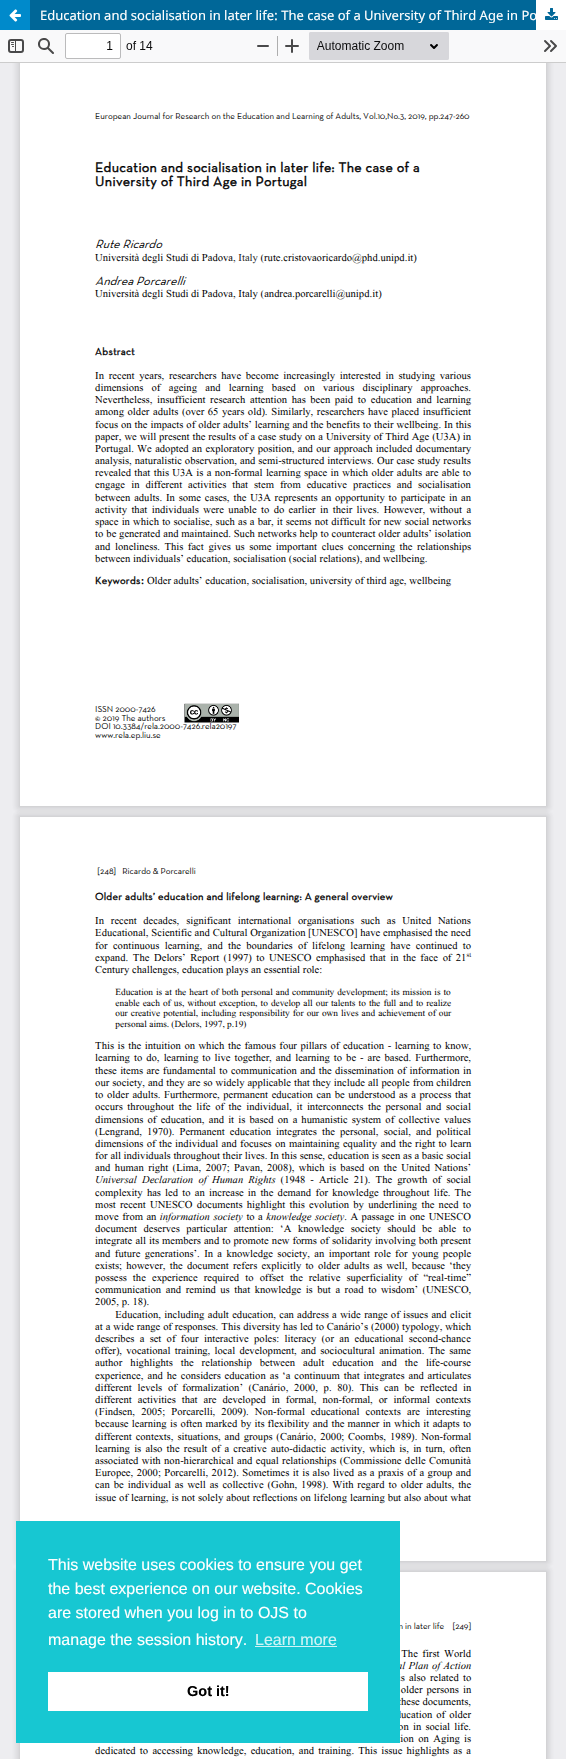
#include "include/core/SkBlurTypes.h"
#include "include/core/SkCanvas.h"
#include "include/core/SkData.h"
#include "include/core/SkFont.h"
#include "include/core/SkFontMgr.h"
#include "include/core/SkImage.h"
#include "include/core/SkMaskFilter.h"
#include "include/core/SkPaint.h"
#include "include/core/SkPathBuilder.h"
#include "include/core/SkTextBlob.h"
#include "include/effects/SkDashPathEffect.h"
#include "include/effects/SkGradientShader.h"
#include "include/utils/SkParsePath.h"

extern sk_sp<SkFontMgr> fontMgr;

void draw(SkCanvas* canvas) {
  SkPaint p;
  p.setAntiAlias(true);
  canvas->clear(SK_ColorWHITE);
  p.setColor(SkColorSetRGB(0, 103, 152));
  canvas->drawRect(SkRect::MakeLTRB(30, 0, 536, 30), p);
  p.setColor(SkColorSetRGB(0, 138, 203));
  canvas->drawRect(SkRect::MakeLTRB(0, 0, 30, 30), p);
  canvas->drawImageRect(SkImages::DeferredFromEncodedData(SkData::MakeFromFileName("images/1.png")), SkRect::MakeLTRB(9, 9, 21, 22), SkSamplingOptions());
  canvas->drawImageRect(SkImages::DeferredFromEncodedData(SkData::MakeFromFileName("images/2.png")), SkRect::MakeLTRB(545, 8, 558, 20), SkSamplingOptions());
  canvas->drawImageRect(SkImages::DeferredFromEncodedData(SkData::MakeFromFileName("images/3.png")), SkRect::MakeLTRB(0, 30, 566, 1759), SkSamplingOptions());
  p.setColor(SkColorSetRGB(23, 199, 210));
  canvas->drawRect(SkRect::MakeLTRB(16, 1521, 400, 1743), p);
  p.setColor(SkColorSetRGB(209, 244, 246));
  canvas->drawRect(SkRect::MakeLTRB(255, 1646, 337, 1647), p);
  p.setColor(SK_ColorWHITE);
  canvas->drawRect(SkRect::MakeLTRB(48, 1672, 368, 1711), p);
  SkFont font1(fontMgr->matchFamilyStyle("Noto Sans", SkFontStyle::Normal()), 13);
  font1.setSubpixel(true);
  canvas->drawString("Education and socialisation in later life: The case of a University of Third Age in Po", 40, 20, font1, p);
  SkFont font2(fontMgr->matchFamilyStyle("Liberation Sans", SkFontStyle::Normal()), 16);
  font2.setSubpixel(true);
  canvas->drawString("This website uses cookies to ensure you get", 48, 1570, font2, p);
  canvas->drawString("the best experience on our website. Cookies", 48, 1594, font2, p);
  canvas->drawString("are stored when you log in to OJS to", 48, 1618, font2, p);
  canvas->drawString("manage the session history.", 48, 1645, font2, p);
  p.setColor(SkColorSetRGB(209, 244, 246));
  canvas->drawString("Learn more", 255, 1645, font2, p);
  SkFont font3(fontMgr->matchFamilyStyle("Liberation Sans", SkFontStyle::Bold()), 14.5f);
  font3.setSubpixel(true);
  p.setColor(SK_ColorBLACK);
  canvas->drawString("Got it!", 187, 1696, font3, p);
}
